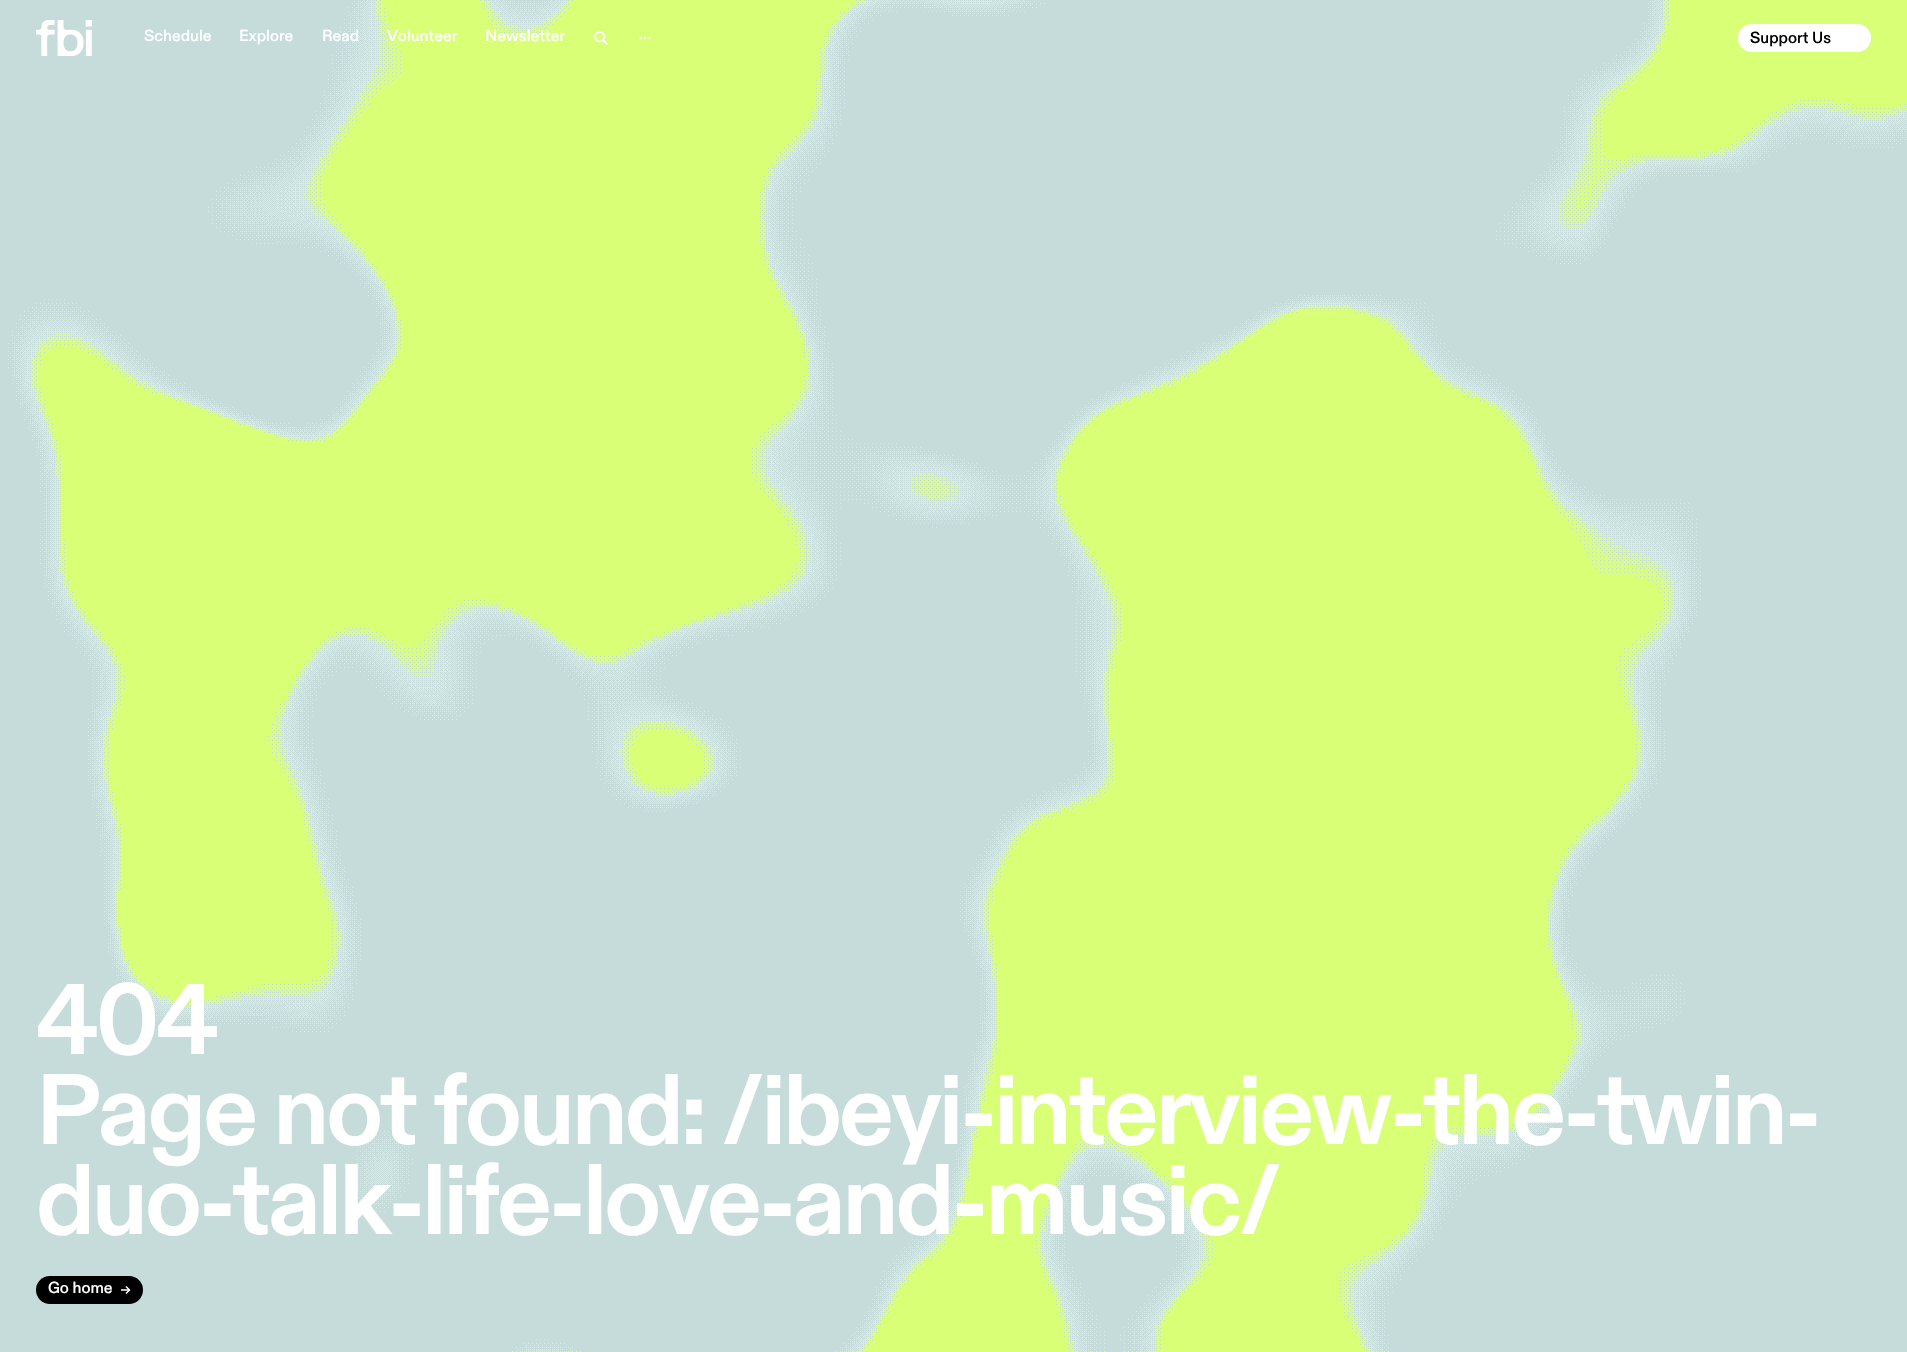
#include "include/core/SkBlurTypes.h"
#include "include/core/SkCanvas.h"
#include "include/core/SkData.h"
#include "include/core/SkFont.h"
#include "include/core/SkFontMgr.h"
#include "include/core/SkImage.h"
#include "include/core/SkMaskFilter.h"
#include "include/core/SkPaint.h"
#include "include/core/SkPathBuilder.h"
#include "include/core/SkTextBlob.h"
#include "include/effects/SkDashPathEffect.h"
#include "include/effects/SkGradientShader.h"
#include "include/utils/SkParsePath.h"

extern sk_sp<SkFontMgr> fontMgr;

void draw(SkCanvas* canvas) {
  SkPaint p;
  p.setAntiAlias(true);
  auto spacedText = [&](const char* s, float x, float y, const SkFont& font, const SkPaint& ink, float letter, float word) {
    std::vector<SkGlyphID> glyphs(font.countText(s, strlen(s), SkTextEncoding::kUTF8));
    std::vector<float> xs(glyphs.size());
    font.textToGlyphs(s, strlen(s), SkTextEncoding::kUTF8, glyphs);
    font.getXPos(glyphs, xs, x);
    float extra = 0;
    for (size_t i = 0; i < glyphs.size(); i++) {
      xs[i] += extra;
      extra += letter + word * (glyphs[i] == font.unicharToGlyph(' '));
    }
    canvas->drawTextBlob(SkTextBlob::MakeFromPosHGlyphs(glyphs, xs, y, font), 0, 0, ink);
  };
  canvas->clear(SK_ColorWHITE);
  canvas->drawImageRect(SkImages::DeferredFromEncodedData(SkData::MakeFromFileName("images/1.png")), SkRect::MakeLTRB(0, 0, 1907, 1352), SkSamplingOptions());
  canvas->drawImageRect(SkImages::DeferredFromEncodedData(SkData::MakeFromFileName("images/2.png")), SkRect::MakeLTRB(36, 20, 92, 56), SkSamplingOptions());
  canvas->drawImageRect(SkImages::DeferredFromEncodedData(SkData::MakeFromFileName("images/3.png")), SkRect::MakeLTRB(594, 31, 608, 45), SkSamplingOptions());
  p.setColor(SK_ColorWHITE);
  canvas->drawCircle(640.5f, 38, 1.2f, p);
  canvas->drawCircle(645, 38, 1.2f, p);
  canvas->drawCircle(649.5f, 38, 1.2f, p);
  canvas->drawRoundRect(SkRect::MakeLTRB(1738, 24, 1871, 52), 14, 14, p);
  p.setColor(SK_ColorBLACK);
  canvas->drawRoundRect(SkRect::MakeLTRB(36, 1276, 143, 1304), 14, 14, p);
  p.setColor(SkColorSetRGB(191, 191, 191));
  canvas->drawRect(SkRect::MakeLTRB(121, 1289, 130, 1291), p);
  p.setStyle(SkPaint::kStroke_Style);
  p.setStrokeWidth(1.5f);
  p.setStrokeJoin(SkPaint::kRound_Join);
  p.setColor(SK_ColorWHITE);
  canvas->drawPath(SkPathBuilder().moveTo(126, 1286.5f).lineTo(129.5f, 1290).lineTo(126, 1293.5f).detach(), p);
  SkFont font1(fontMgr->matchFamilyStyle("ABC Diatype", SkFontStyle(500, SkFontStyle::kNormal_Width, SkFontStyle::kUpright_Slant)), 16);
  font1.setSubpixel(true);
  p.setStyle(SkPaint::kFill_Style);
  canvas->drawString("Schedule", 144, 41, font1, p);
  canvas->drawString("Explore", 239, 41, font1, p);
  canvas->drawString("Read", 322, 41, font1, p);
  canvas->drawString("Volunteer", 387, 41, font1, p);
  canvas->drawString("Newsletter", 485, 41, font1, p);
  p.setColor(SK_ColorBLACK);
  canvas->drawString("Support Us", 1750, 43, font1, p);
  SkFont font2(fontMgr->matchFamilyStyle("ABC Diatype", SkFontStyle::Bold()), 100);
  font2.setSubpixel(true);
  p.setColor(SK_ColorWHITE);
  spacedText("404", 36, 1054, font2, p, -3, 0);
  spacedText("Page not found: /ibeyi-interview-the-twin-", 36, 1144, font2, p, -3, 0);
  spacedText("duo-talk-life-love-and-music/", 36, 1234, font2, p, -3, 0);
  canvas->drawString("Go home", 48, 1293, font1, p);
}
